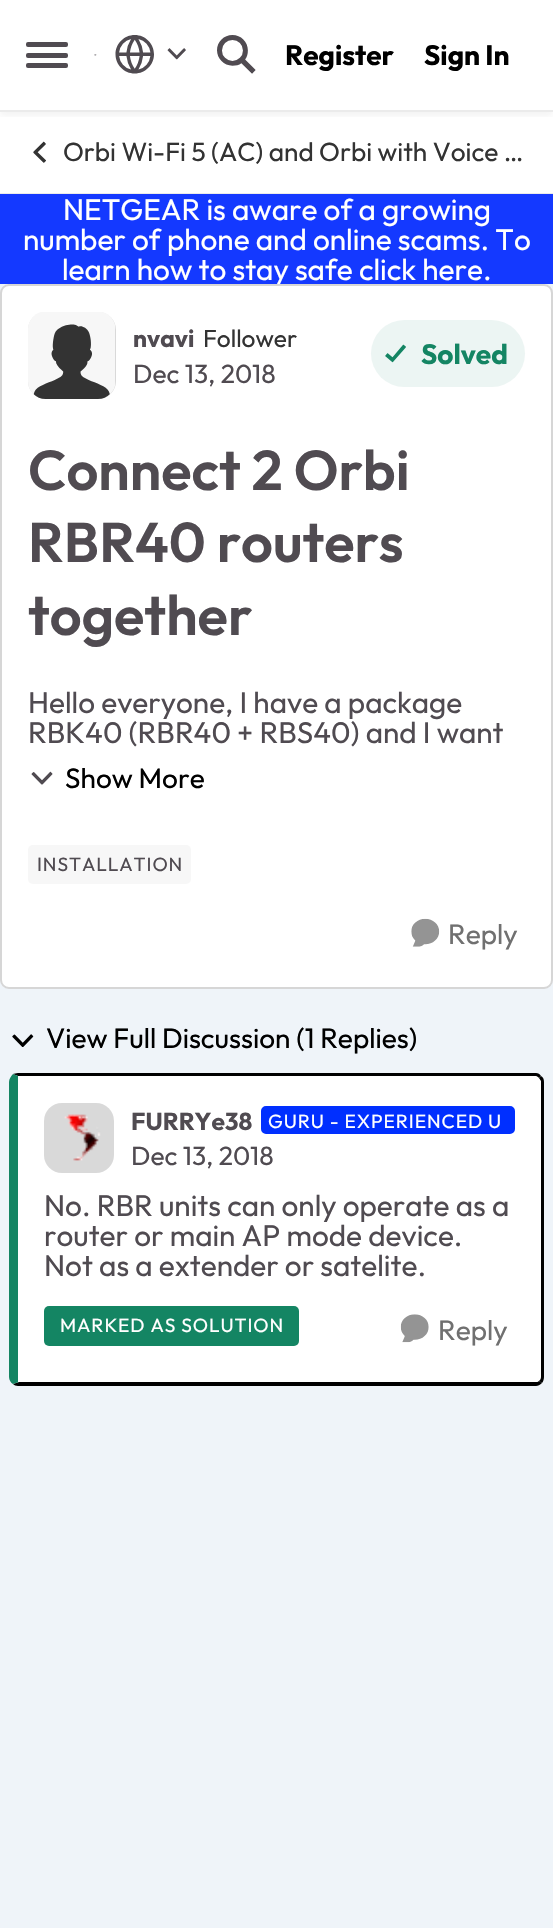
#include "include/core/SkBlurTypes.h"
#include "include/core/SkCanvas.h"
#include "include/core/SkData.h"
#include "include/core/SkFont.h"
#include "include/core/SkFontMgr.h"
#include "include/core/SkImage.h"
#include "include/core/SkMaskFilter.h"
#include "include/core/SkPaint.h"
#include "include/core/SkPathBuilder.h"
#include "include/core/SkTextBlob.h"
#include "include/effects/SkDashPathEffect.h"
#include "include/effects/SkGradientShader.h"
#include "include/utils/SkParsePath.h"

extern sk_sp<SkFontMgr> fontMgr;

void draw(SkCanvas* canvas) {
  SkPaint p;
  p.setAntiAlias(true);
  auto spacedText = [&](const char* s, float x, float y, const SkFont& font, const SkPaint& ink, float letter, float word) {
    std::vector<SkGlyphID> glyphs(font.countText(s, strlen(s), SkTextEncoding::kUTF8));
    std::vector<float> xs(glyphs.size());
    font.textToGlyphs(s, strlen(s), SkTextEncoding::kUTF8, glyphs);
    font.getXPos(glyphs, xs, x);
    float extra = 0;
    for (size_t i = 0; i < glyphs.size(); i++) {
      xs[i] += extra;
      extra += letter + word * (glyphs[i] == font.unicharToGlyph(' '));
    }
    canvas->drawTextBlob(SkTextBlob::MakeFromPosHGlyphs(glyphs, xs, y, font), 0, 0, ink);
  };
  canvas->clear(SkColorSetRGB(239, 244, 249));
  p.setColor(SK_ColorWHITE);
  canvas->drawRect(SkRect::MakeLTRB(0, 0, 553, 193), p);
  canvas->save();
  canvas->clipRect(SkRect::MakeLTRB(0, 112, 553, 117));
  p.setColor(SkColorSetARGB(15, 51, 51, 51));
  p.setMaskFilter(SkMaskFilter::MakeBlur(kNormal_SkBlurStyle, 3.5f));
  canvas->drawRect(SkRect::MakeLTRB(0, 4, 553, 116), p);
  p.setMaskFilter(nullptr);
  canvas->restore();
  p.setColor(SkColorSetRGB(235, 235, 235));
  canvas->drawRect(SkRect::MakeLTRB(0, 110, 553, 112), p);
  p.setColor(SkColorSetRGB(80, 75, 81));
  canvas->drawRoundRect(SkRect::MakeLTRB(26, 42, 68, 47), 2, 2, p);
  canvas->drawRoundRect(SkRect::MakeLTRB(26, 53, 68, 58), 2, 2, p);
  canvas->drawRoundRect(SkRect::MakeLTRB(26, 63, 68, 68), 2, 2, p);
  canvas->drawImageRect(SkImages::DeferredFromEncodedData(SkData::MakeFromFileName("images/1.png")), SkRect::MakeLTRB(94, 54, 97, 56), SkSamplingOptions());
  canvas->drawImageRect(SkImages::DeferredFromEncodedData(SkData::MakeFromFileName("images/2.png")), SkRect::MakeLTRB(115, 35, 154, 74), SkSamplingOptions());
  canvas->drawImageRect(SkImages::DeferredFromEncodedData(SkData::MakeFromFileName("images/3.png")), SkRect::MakeLTRB(167, 48, 186, 60), SkSamplingOptions());
  canvas->drawImageRect(SkImages::DeferredFromEncodedData(SkData::MakeFromFileName("images/4.png")), SkRect::MakeLTRB(217, 35, 256, 74), SkSamplingOptions());
  p.setColor(SkColorSetRGB(235, 235, 235));
  canvas->drawRect(SkRect::MakeLTRB(0, 193, 553, 194), p);
  canvas->drawImageRect(SkImages::DeferredFromEncodedData(SkData::MakeFromFileName("images/5.png")), SkRect::MakeLTRB(33, 141, 46, 163), SkSamplingOptions());
  p.setColor(SkColorSetRGB(20, 57, 255));
  canvas->drawRect(SkRect::MakeLTRB(0, 194, 553, 284), p);
  p.setColor(SK_ColorWHITE);
  canvas->drawRoundRect(SkRect::MakeLTRB(0, 284, 553, 989), 9, 9, p);
  canvas->drawImageRect(SkImages::DeferredFromEncodedData(SkData::MakeFromFileName("images/10.png")), SkRect::MakeLTRB(12, 1034, 34, 1047), SkSamplingOptions());
  canvas->drawPath(SkPathBuilder().moveTo(18, 1076).lineTo(536, 1076).cubicTo(538, 1076, 541, 1079, 541, 1082).lineTo(541, 1377).cubicTo(541, 1380, 538, 1382, 536, 1382).lineTo(18, 1382).close().detach(), p);
  p.setColor(SK_ColorBLACK);
  canvas->drawPath(SkPathBuilder().moveTo(18, 1073).cubicTo(16, 1073, 14, 1074, 13, 1074).lineTo(18, 1076).lineTo(536, 1076).cubicTo(537, 1076, 538, 1077, 539, 1078).lineTo(541, 1076).cubicTo(540, 1074, 538, 1073, 536, 1073).close().detach(), p);
  canvas->drawPath(SkPathBuilder().moveTo(541, 1076).cubicTo(543, 1077, 544, 1079, 544, 1082).lineTo(544, 1377).cubicTo(544, 1379, 543, 1382, 542, 1383).lineTo(539, 1381).cubicTo(540, 1380, 541, 1379, 541, 1377).lineTo(541, 1081).lineTo(539, 1078).close().detach(), p);
  canvas->drawPath(SkPathBuilder().moveTo(18, 1386).lineTo(536, 1386).cubicTo(538, 1386, 540, 1385, 542, 1383).lineTo(539, 1381).cubicTo(538, 1382, 537, 1382, 536, 1382).lineTo(19, 1382).lineTo(13, 1384).cubicTo(14, 1385, 16, 1386, 18, 1386).close().detach(), p);
  p.setColor(SkColorSetRGB(20, 133, 99));
  canvas->drawPath(SkPathBuilder().moveTo(13, 1074).cubicTo(11, 1076, 9, 1079, 9, 1082).lineTo(9, 1377).cubicTo(9, 1380, 11, 1383, 13, 1384).lineTo(19, 1382).lineTo(18, 1382).lineTo(18, 1076).close().detach(), p);
  p.setColor(SkColorSetRGB(217, 217, 217));
  canvas->drawRoundRect(SkRect::MakeLTRB(44, 1103, 114, 1173), 18, 18, p);
  canvas->drawImageRect(SkImages::DeferredFromEncodedData(SkData::MakeFromFileName("images/11.png")), SkRect::MakeLTRB(64, 1114, 101, 1161), SkSamplingOptions());
  p.setColor(SkColorSetRGB(0, 47, 255));
  canvas->drawRoundRect(SkRect::MakeLTRB(262, 1107, 514, 1133), 4, 4, p);
  p.setStyle(SkPaint::kStroke_Style);
  p.setStrokeWidth(2);
  canvas->drawRoundRect(SkRect::MakeLTRB(262, 1107, 514, 1133), 4, 4, p);
  p.setStyle(SkPaint::kFill_Style);
  p.setColor(SkColorSetRGB(20, 133, 99));
  canvas->drawRoundRect(SkRect::MakeLTRB(44, 1306, 299, 1346), 5, 5, p);
  canvas->drawImageRect(SkImages::DeferredFromEncodedData(SkData::MakeFromFileName("images/12.png")), SkRect::MakeLTRB(400, 1314, 429, 1343), SkSamplingOptions());
  SkFont font1(fontMgr->matchFamilyStyle("Outfit", SkFontStyle::Bold()), 28);
  font1.setSubpixel(true);
  p.setColor(SK_ColorBLACK);
  canvas->drawString("Register", 285, 65, font1, p);
  canvas->drawString("Sign In", 424, 65, font1, p);
  SkFont font2(fontMgr->matchFamilyStyle("Outfit", SkFontStyle::Normal()), 26.25f);
  font2.setSubpixel(true);
  p.setColor(SkColorSetRGB(51, 51, 51));
  canvas->drawString("Orbi Wi-Fi 5 (AC) and Orbi with Voice …", 63, 161, font2, p);
  SkFont font3(fontMgr->matchFamilyStyle("Outfit", SkFontStyle::Normal()), 29.75f);
  font3.setSubpixel(true);
  p.setColor(SK_ColorWHITE);
  canvas->drawString("NETGEAR is aware of a growing", 63, 220, font3, p);
  canvas->drawString("number of phone and online scams. To", 23, 250, font3, p);
  canvas->drawString("learn how to stay safe click here.", 62, 280, font3, p);
  p.setStyle(SkPaint::kStroke_Style);
  p.setColor(SkColorSetARGB(41, 0, 0, 0));
  canvas->drawRoundRect(SkRect::MakeLTRB(1, 285, 552, 988), 8, 8, p);
  p.setStyle(SkPaint::kFill_Style);
  p.setColor(SkColorSetRGB(217, 217, 217));
  canvas->drawRoundRect(SkRect::MakeLTRB(28, 312, 116, 399), 18, 18, p);
  canvas->drawImageRect(SkImages::DeferredFromEncodedData(SkData::MakeFromFileName("images/6.png")), SkRect::MakeLTRB(28, 312, 115, 399), SkSamplingOptions());
  SkFont font4(fontMgr->matchFamilyStyle("Outfit", SkFontStyle::Bold()), 24.5f);
  font4.setSubpixel(true);
  p.setColor(SkColorSetRGB(80, 75, 81));
  canvas->drawString("nvavi", 133, 347, font4, p);
  SkFont font5(fontMgr->matchFamilyStyle("Outfit", SkFontStyle::Normal()), 24.5f);
  font5.setSubpixel(true);
  p.setColor(SkColorSetRGB(51, 51, 51));
  canvas->drawString("Follower", 203, 347, font5, p);
  p.setColor(SkColorSetRGB(80, 75, 81));
  canvas->drawString("Dec 13, 2018", 133, 383, font2, p);
  p.setColor(SkColorSetRGB(236, 245, 243));
  canvas->drawRoundRect(SkRect::MakeLTRB(371, 320, 525, 387), 33.5f, 33.5f, p);
  canvas->drawImageRect(SkImages::DeferredFromEncodedData(SkData::MakeFromFileName("images/7.png")), SkRect::MakeLTRB(385, 344, 406, 363), SkSamplingOptions());
  p.setColor(SkColorSetRGB(20, 133, 99));
  canvas->drawString("Solved", 421, 364, font1, p);
  SkFont font6(fontMgr->matchFamilyStyle("Outfit", SkFontStyle(600, SkFontStyle::kNormal_Width, SkFontStyle::kUpright_Slant)), 56);
  font6.setSubpixel(true);
  p.setColor(SkColorSetRGB(80, 75, 81));
  canvas->drawString("Connect 2 Orbi", 28, 490, font6, p);
  canvas->drawString("RBR40 routers", 28, 562, font6, p);
  canvas->drawString("together", 28, 635, font6, p);
  canvas->drawString("Hello everyone, I have a package", 28, 713, font3, p);
  canvas->drawString("RBK40 (RBR40 + RBS40) and I want", 28, 743, font3, p);
  canvas->drawImageRect(SkImages::DeferredFromEncodedData(SkData::MakeFromFileName("images/8.png")), SkRect::MakeLTRB(31, 771, 53, 785), SkSamplingOptions());
  SkFont font7(fontMgr->matchFamilyStyle("Outfit", SkFontStyle::Normal()), 28);
  font7.setSubpixel(true);
  p.setColor(SK_ColorBLACK);
  canvas->drawString("Show More", 65, 788, font7, p);
  p.setColor(SkColorSetRGB(247, 247, 247));
  canvas->drawRoundRect(SkRect::MakeLTRB(28, 845, 191, 884), 5, 5, p);
  SkFont font8(fontMgr->matchFamilyStyle("Outfit", SkFontStyle::Normal()), 19.25f);
  font8.setSubpixel(true);
  p.setColor(SkColorSetRGB(80, 75, 81));
  spacedText("INSTALLATION", 37, 871, font8, p, 0.9f, 0);
  canvas->drawImageRect(SkImages::DeferredFromEncodedData(SkData::MakeFromFileName("images/9.png")), SkRect::MakeLTRB(411, 918, 440, 947), SkSamplingOptions());
  p.setColor(SkColorSetRGB(112, 112, 112));
  canvas->drawString("Reply", 448, 944, font7, p);
  p.setColor(SK_ColorBLACK);
  canvas->drawString("View Full Discussion (1 Replies)", 46, 1048, font7, p);
  p.setColor(SkColorSetRGB(80, 75, 81));
  canvas->drawString("FURRYe38", 131, 1130, font4, p);
  p.setColor(SK_ColorWHITE);
  spacedText("GURU - EXPERIENCED U", 268, 1128, font8, p, 0.9f, 0);
  p.setColor(SkColorSetRGB(80, 75, 81));
  canvas->drawString("Dec 13, 2018", 131, 1165, font2, p);
  canvas->drawString("No. RBR units can only operate as a", 44, 1216, font3, p);
  canvas->drawString("router or main AP mode device.", 44, 1246, font3, p);
  canvas->drawString("Not as a extender or satelite.", 44, 1276, font3, p);
  p.setColor(SK_ColorWHITE);
  spacedText("MARKED AS SOLUTION", 60, 1332, font8, p, 0.9f, 0);
  p.setColor(SkColorSetRGB(112, 112, 112));
  canvas->drawString("Reply", 438, 1340, font7, p);
}
